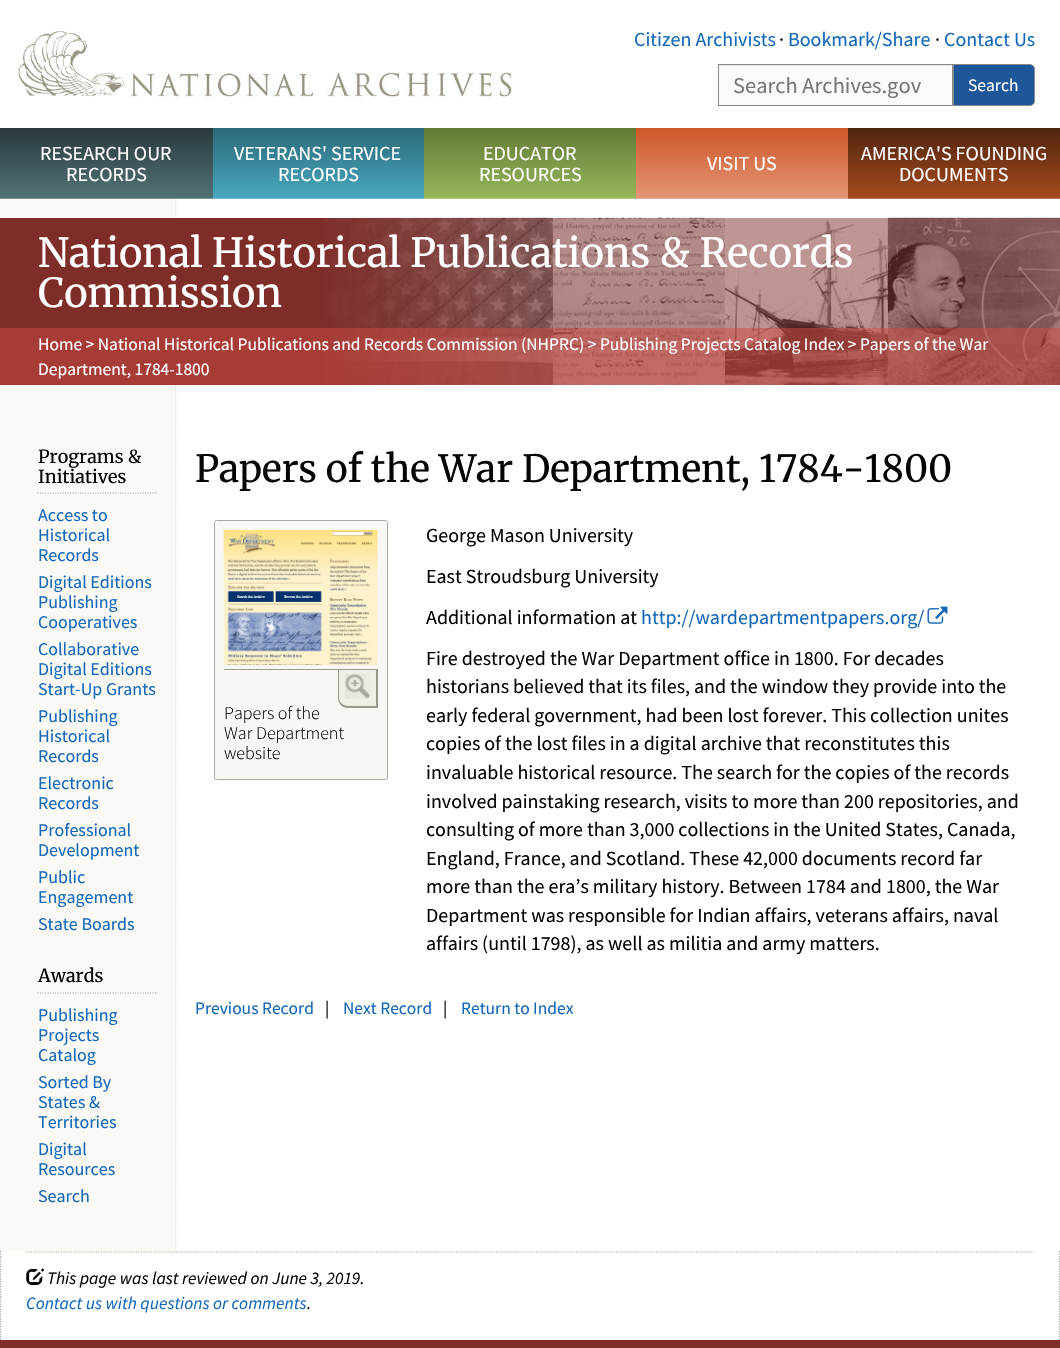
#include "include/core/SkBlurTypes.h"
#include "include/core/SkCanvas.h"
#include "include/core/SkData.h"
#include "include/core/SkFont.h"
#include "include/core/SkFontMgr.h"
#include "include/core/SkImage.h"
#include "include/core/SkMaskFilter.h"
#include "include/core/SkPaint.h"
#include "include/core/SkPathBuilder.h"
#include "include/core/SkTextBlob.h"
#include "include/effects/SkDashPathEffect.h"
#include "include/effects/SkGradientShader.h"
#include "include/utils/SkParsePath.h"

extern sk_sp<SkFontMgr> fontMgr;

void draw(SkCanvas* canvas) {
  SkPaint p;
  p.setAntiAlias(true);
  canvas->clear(SK_ColorWHITE);
  canvas->drawImageRect(SkImages::DeferredFromEncodedData(SkData::MakeFromFileName("images/1.png")), SkRect::MakeLTRB(18, 31, 512, 97), SkSamplingOptions());
  p.setColor(SkColorSetRGB(250, 250, 250));
  canvas->drawRect(SkRect::MakeLTRB(719, 65, 952, 105), p);
  p.setColor(SkColorSetRGB(231, 231, 231));
  canvas->drawRect(SkRect::MakeLTRB(719, 65, 951, 66), p);
  p.setStyle(SkPaint::kStroke_Style);
  p.setStrokeWidth(1);
  p.setColor(SkColorSetRGB(136, 136, 136));
  canvas->drawRect(SkRect::MakeLTRB(718.5f, 64.5f, 952.5f, 105.5f), p);
  p.setStyle(SkPaint::kFill_Style);
  p.setColor(SkColorSetRGB(30, 87, 153));
  canvas->drawPath(SkPathBuilder().moveTo(953.5f, 64.5f).lineTo(1030, 64.5f).cubicTo(1032.5f, 64.5f, 1034.5f, 66.5f, 1034.5f, 69).lineTo(1034.5f, 101).cubicTo(1034.5f, 103.5f, 1032.5f, 105.5f, 1030, 105.5f).lineTo(953.5f, 105.5f).close().detach(), p);
  p.setStyle(SkPaint::kStroke_Style);
  p.setColor(SkColorSetRGB(136, 136, 136));
  canvas->drawPath(SkPathBuilder().moveTo(953.5f, 64.5f).lineTo(1030, 64.5f).cubicTo(1032.5f, 64.5f, 1034.5f, 66.5f, 1034.5f, 69).lineTo(1034.5f, 101).cubicTo(1034.5f, 103.5f, 1032.5f, 105.5f, 1030, 105.5f).lineTo(953.5f, 105.5f).close().detach(), p);
  p.setStyle(SkPaint::kFill_Style);
  {
    const SkColor colors[] = {SkColorSetRGB(41, 57, 59), SkColorSetRGB(83, 115, 119)};
    const float stops[] = {0, 1};
    const SkPoint ends[] = {{106, 127}, {106, 199}};
    p.setShader(SkGradientShader::MakeLinear(ends, colors, stops, 2, SkTileMode::kClamp));
    p.setAlpha(255);
  }
  canvas->drawRect(SkRect::MakeLTRB(0, 128, 213, 199), p);
  {
    const SkColor colors[] = {SkColorSetRGB(42, 105, 120), SkColorSetRGB(73, 168, 191)};
    const float stops[] = {0, 1};
    const SkPoint ends[] = {{318, 127}, {318, 199}};
    p.setShader(SkGradientShader::MakeLinear(ends, colors, stops, 2, SkTileMode::kClamp));
    p.setAlpha(255);
  }
  canvas->drawRect(SkRect::MakeLTRB(213, 128, 424, 199), p);
  {
    const SkColor colors[] = {SkColorSetRGB(97, 121, 53), SkColorSetRGB(151, 184, 92)};
    const float stops[] = {0, 1};
    const SkPoint ends[] = {{530, 127}, {530, 199}};
    p.setShader(SkGradientShader::MakeLinear(ends, colors, stops, 2, SkTileMode::kClamp));
    p.setAlpha(255);
  }
  canvas->drawRect(SkRect::MakeLTRB(424, 128, 636, 199), p);
  {
    const SkColor colors[] = {SkColorSetRGB(205, 87, 40), SkColorSetRGB(228, 150, 119)};
    const float stops[] = {0, 1};
    const SkPoint ends[] = {{742, 127}, {742, 199}};
    p.setShader(SkGradientShader::MakeLinear(ends, colors, stops, 2, SkTileMode::kClamp));
    p.setAlpha(255);
  }
  canvas->drawRect(SkRect::MakeLTRB(636, 128, 848, 199), p);
  {
    const SkColor colors[] = {SkColorSetRGB(79, 36, 14), SkColorSetRGB(166, 75, 29)};
    const float stops[] = {0, 1};
    const SkPoint ends[] = {{954, 127}, {954, 199}};
    p.setShader(SkGradientShader::MakeLinear(ends, colors, stops, 2, SkTileMode::kClamp));
    p.setAlpha(255);
  }
  canvas->drawRect(SkRect::MakeLTRB(848, 128, 1060, 199), p);
  canvas->drawImageRect(SkImages::DeferredFromEncodedData(SkData::MakeFromFileName("images/2.png")), SkRect::MakeLTRB(0, 198, 1060, 1251), SkSamplingOptions());
  p.setShader(nullptr);
  p.setColor(SkColorSetRGB(126, 45, 41));
  canvas->drawRect(SkRect::MakeLTRB(0, 218, 1060, 385), p);
  canvas->drawImageRect(SkImages::DeferredFromEncodedData(SkData::MakeFromFileName("images/3.png")), SkRect::MakeLTRB(324, 217, 1060, 385), SkSamplingOptions());
  p.setColor(SkColorSetARGB(128, 207, 74, 67));
  canvas->drawRect(SkRect::MakeLTRB(0, 328, 1060, 385), p);
  p.setStyle(SkPaint::kStroke_Style);
  p.setStrokeWidth(1.2f);
  p.setColor(SkColorSetRGB(170, 170, 170));
  p.setPathEffect(SkDashPathEffect::Make({{1.25f, 1.25f}}, 0));
  canvas->drawPath(SkPathBuilder().moveTo(37.5f, 493).lineTo(157.5f, 493).detach(), p);
  p.setPathEffect(nullptr);
  p.setPathEffect(SkDashPathEffect::Make({{1.25f, 1.25f}}, 0));
  canvas->drawPath(SkPathBuilder().moveTo(37.5f, 993).lineTo(157.5f, 993).detach(), p);
  p.setPathEffect(nullptr);
  p.setStyle(SkPaint::kFill_Style);
  p.setColor(SkColorSetRGB(248, 247, 243));
  canvas->drawRoundRect(SkRect::MakeLTRB(214.5f, 520.5f, 387.5f, 779.5f), 2, 2, p);
  p.setStyle(SkPaint::kStroke_Style);
  p.setStrokeWidth(1);
  p.setColor(SkColorSetRGB(170, 170, 170));
  canvas->drawRoundRect(SkRect::MakeLTRB(214.5f, 520.5f, 387.5f, 779.5f), 2, 2, p);
  canvas->drawImageRect(SkImages::DeferredFromEncodedData(SkData::MakeFromFileName("images/4.png")), SkRect::MakeLTRB(223, 530, 378, 665), SkSamplingOptions());
  p.setStyle(SkPaint::kFill_Style);
  p.setColor(SkColorSetRGB(153, 152, 141));
  canvas->drawRect(SkRect::MakeLTRB(224, 669, 378, 670), p);
  p.setColor(SkColorSetRGB(240, 238, 230));
  canvas->drawPath(SkPathBuilder().moveTo(338, 670).lineTo(378, 670).lineTo(378, 708).lineTo(348, 708).cubicTo(342.5f, 708, 338, 703.5f, 338, 698).close().detach(), p);
  p.setColor(SkColorSetRGB(153, 152, 141));
  canvas->drawPath(SkPathBuilder(SkPathFillType::kEvenOdd).moveTo(338, 670).lineTo(378, 670).lineTo(378, 708).lineTo(348, 708).cubicTo(342, 708, 338, 703, 338, 698).close().moveTo(339, 670).lineTo(376, 670).lineTo(376, 706).lineTo(348, 706).cubicTo(343, 706, 339, 702, 339, 698).close().detach(), p);
  canvas->drawImageRect(SkImages::DeferredFromEncodedData(SkData::MakeFromFileName("images/5.png")), SkRect::MakeLTRB(345, 673, 370, 699), SkSamplingOptions());
  canvas->drawImageRect(SkImages::DeferredFromEncodedData(SkData::MakeFromFileName("images/6.png")), SkRect::MakeLTRB(927, 606, 948, 624), SkSamplingOptions());
  p.setStyle(SkPaint::kStroke_Style);
  p.setStrokeWidth(1.2f);
  p.setColor(SkColorSetRGB(164, 171, 179));
  p.setPathEffect(SkDashPathEffect::Make({{1.25f, 1.25f}}, 0));
  canvas->drawPath(SkPathBuilder().moveTo(1059.5f, 1251).lineTo(1059.5f, 1340).detach(), p);
  p.setPathEffect(nullptr);
  p.setPathEffect(SkDashPathEffect::Make({{1.25f, 1.25f}}, 0));
  canvas->drawPath(SkPathBuilder().moveTo(0.5f, 1251).lineTo(0.5f, 1340).detach(), p);
  p.setPathEffect(nullptr);
  p.setColor(SkColorSetRGB(170, 170, 170));
  p.setPathEffect(SkDashPathEffect::Make({{1.25f, 1.25f}}, 0));
  canvas->drawPath(SkPathBuilder().moveTo(26, 1252).lineTo(1034, 1252).detach(), p);
  p.setPathEffect(nullptr);
  canvas->drawImageRect(SkImages::DeferredFromEncodedData(SkData::MakeFromFileName("images/7.png")), SkRect::MakeLTRB(26, 1268, 44, 1285), SkSamplingOptions());
  p.setStyle(SkPaint::kFill_Style);
  p.setColor(SkColorSetRGB(126, 45, 41));
  canvas->drawRect(SkRect::MakeLTRB(0, 1340, 1060, 1348), p);
  SkFont font1(fontMgr->matchFamilyStyle("Source Sans Pro", SkFontStyle::Normal()), 20);
  font1.setSubpixel(true);
  p.setColor(SkColorSetRGB(19, 104, 186));
  canvas->drawString("Citizen Archivists", 634, 46, font1, p);
  p.setColor(SkColorSetRGB(5, 5, 5));
  canvas->drawString("·", 779, 46, font1, p);
  p.setColor(SkColorSetRGB(19, 104, 186));
  canvas->drawString("Bookmark/Share", 788, 46, font1, p);
  p.setColor(SkColorSetRGB(5, 5, 5));
  canvas->drawString("·", 935, 46, font1, p);
  p.setColor(SkColorSetRGB(19, 104, 186));
  canvas->drawString("Contact Us", 944, 46, font1, p);
  SkFont font2(fontMgr->matchFamilyStyle("Source Sans Pro", SkFontStyle::Normal()), 22.5f);
  font2.setSubpixel(true);
  p.setColor(SkColorSetRGB(119, 119, 119));
  canvas->drawString("Search Archives.gov", 733, 93, font2, p);
  SkFont font3(fontMgr->matchFamilyStyle("Source Sans Pro", SkFontStyle::Normal()), 17.5f);
  font3.setSubpixel(true);
  p.setColor(SK_ColorWHITE);
  canvas->drawString("Search", 968, 91, font3, p);
  canvas->drawString("RESEARCH OUR", 40, 160, font1, p);
  canvas->drawString("RECORDS", 66, 181, font1, p);
  canvas->drawString("VETERANS' SERVICE", 234, 160, font1, p);
  canvas->drawString("RECORDS", 278, 181, font1, p);
  canvas->drawString("EDUCATOR", 483, 160, font1, p);
  canvas->drawString("RESOURCES", 479, 181, font1, p);
  canvas->drawString("VISIT US", 707, 170, font1, p);
  canvas->drawString("AMERICA'S FOUNDING", 861, 160, font1, p);
  canvas->drawString("DOCUMENTS", 899, 181, font1, p);
  SkFont font4(fontMgr->matchFamilyStyle("Merriweather", SkFontStyle(300, SkFontStyle::kNormal_Width, SkFontStyle::kUpright_Slant)), 40);
  font4.setSubpixel(true);
  canvas->drawString("National Historical Publications & Records", 38, 267, font4, p);
  canvas->drawString("Commission", 38, 307, font4, p);
  canvas->drawString("Home > National Historical Publications and Records Commission (NHPRC) > Publishing Projects Catalog Index > Papers of the War", 38, 350, font3, p);
  canvas->drawString("Department, 1784-1800", 38, 375, font3, p);
  SkFont font5(fontMgr->matchFamilyStyle("Merriweather", SkFontStyle(300, SkFontStyle::kNormal_Width, SkFontStyle::kUpright_Slant)), 18);
  font5.setSubpixel(true);
  p.setColor(SkColorSetRGB(5, 5, 5));
  canvas->drawString("Programs &", 38, 463, font5, p);
  canvas->drawString("Initiatives", 38, 483, font5, p);
  SkFont font6(fontMgr->matchFamilyStyle("Source Sans Pro", SkFontStyle::Normal()), 18);
  font6.setSubpixel(true);
  p.setColor(SkColorSetRGB(19, 104, 186));
  canvas->drawString("Access to", 38, 521, font6, p);
  canvas->drawString("Historical", 38, 541, font6, p);
  canvas->drawString("Records", 38, 561, font6, p);
  canvas->drawString("Digital Editions", 38, 588, font6, p);
  canvas->drawString("Publishing", 38, 608, font6, p);
  canvas->drawString("Cooperatives", 38, 628, font6, p);
  canvas->drawString("Collaborative", 38, 655, font6, p);
  canvas->drawString("Digital Editions", 38, 675, font6, p);
  canvas->drawString("Start-Up Grants", 38, 695, font6, p);
  canvas->drawString("Publishing", 38, 722, font6, p);
  canvas->drawString("Historical", 38, 742, font6, p);
  canvas->drawString("Records", 38, 762, font6, p);
  canvas->drawString("Electronic", 38, 789, font6, p);
  canvas->drawString("Records", 38, 809, font6, p);
  canvas->drawString("Professional", 38, 836, font6, p);
  canvas->drawString("Development", 38, 856, font6, p);
  canvas->drawString("Public", 38, 883, font6, p);
  canvas->drawString("Engagement", 38, 903, font6, p);
  canvas->drawString("State Boards", 38, 930, font6, p);
  p.setColor(SkColorSetRGB(5, 5, 5));
  canvas->drawString("Awards", 38, 982, font5, p);
  p.setColor(SkColorSetRGB(19, 104, 186));
  canvas->drawString("Publishing", 38, 1021, font6, p);
  canvas->drawString("Projects", 38, 1041, font6, p);
  canvas->drawString("Catalog", 38, 1061, font6, p);
  canvas->drawString("Sorted By", 38, 1088, font6, p);
  canvas->drawString("States &", 38, 1108, font6, p);
  canvas->drawString("Territories", 38, 1128, font6, p);
  canvas->drawString("Digital", 38, 1155, font6, p);
  canvas->drawString("Resources", 38, 1175, font6, p);
  canvas->drawString("Search", 38, 1202, font6, p);
  SkFont font7(fontMgr->matchFamilyStyle("Merriweather", SkFontStyle(300, SkFontStyle::kNormal_Width, SkFontStyle::kUpright_Slant)), 37.5f);
  font7.setSubpixel(true);
  p.setColor(SkColorSetRGB(5, 5, 5));
  canvas->drawString("Papers of the War Department, 1784-1800", 195, 482, font7, p);
  SkFont font8(fontMgr->matchFamilyStyle("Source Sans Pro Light", SkFontStyle(300, SkFontStyle::kNormal_Width, SkFontStyle::kUpright_Slant)), 18);
  font8.setSubpixel(true);
  canvas->drawString("Papers of the", 224, 719, font8, p);
  canvas->drawString("War Department", 224, 739, font8, p);
  canvas->drawString("website", 224, 759, font8, p);
  canvas->drawString("George Mason University", 426, 542, font1, p);
  canvas->drawString("East Stroudsburg University", 426, 583, font1, p);
  canvas->drawString("Additional information at", 426, 624, font1, p);
  p.setColor(SkColorSetRGB(19, 104, 186));
  canvas->drawString("http://wardepartmentpapers.org/", 641, 624, font1, p);
  p.setColor(SkColorSetRGB(5, 5, 5));
  canvas->drawString("Fire destroyed the War Department office in 1800. For decades", 426, 665, font1, p);
  canvas->drawString("historians believed that its files, and the window they provide into the", 426, 693, font1, p);
  canvas->drawString("early federal government, had been lost forever. This collection unites", 426, 722, font1, p);
  canvas->drawString("copies of the lost files in a digital archive that reconstitutes this", 426, 750, font1, p);
  canvas->drawString("invaluable historical resource. The search for the copies of the records", 426, 779, font1, p);
  canvas->drawString("involved painstaking research, visits to more than 200 repositories, and", 426, 808, font1, p);
  canvas->drawString("consulting of more than 3,000 collections in the United States, Canada,", 426, 836, font1, p);
  canvas->drawString("England, France, and Scotland. These 42,000 documents record far", 426, 865, font1, p);
  canvas->drawString("more than the era’s military history. Between 1784 and 1800, the War", 426, 893, font1, p);
  canvas->drawString("Department was responsible for Indian affairs, veterans affairs, naval", 426, 922, font1, p);
  canvas->drawString("affairs (until 1798), as well as militia and army matters.", 426, 950, font1, p);
  p.setColor(SkColorSetRGB(19, 104, 186));
  canvas->drawString("Previous Record", 195, 1014, font3, p);
  p.setColor(SkColorSetRGB(5, 5, 5));
  canvas->drawString("|", 325, 1014, font3, p);
  p.setColor(SkColorSetRGB(19, 104, 186));
  canvas->drawString("Next Record", 343, 1014, font3, p);
  p.setColor(SkColorSetRGB(5, 5, 5));
  canvas->drawString("|", 443, 1014, font3, p);
  p.setColor(SkColorSetRGB(19, 104, 186));
  canvas->drawString("Return to Index", 461, 1014, font3, p);
  SkFont font9(fontMgr->matchFamilyStyle("Source Sans Pro", SkFontStyle::Italic()), 17.5f);
  font9.setSubpixel(true);
  p.setColor(SkColorSetRGB(5, 5, 5));
  canvas->drawString("This page was last reviewed on June 3, 2019.", 47, 1284, font9, p);
  p.setColor(SkColorSetRGB(19, 104, 186));
  canvas->drawString("Contact us with questions or comments", 26, 1309, font9, p);
  p.setColor(SkColorSetRGB(5, 5, 5));
  canvas->drawString(".", 307, 1309, font9, p);
}
